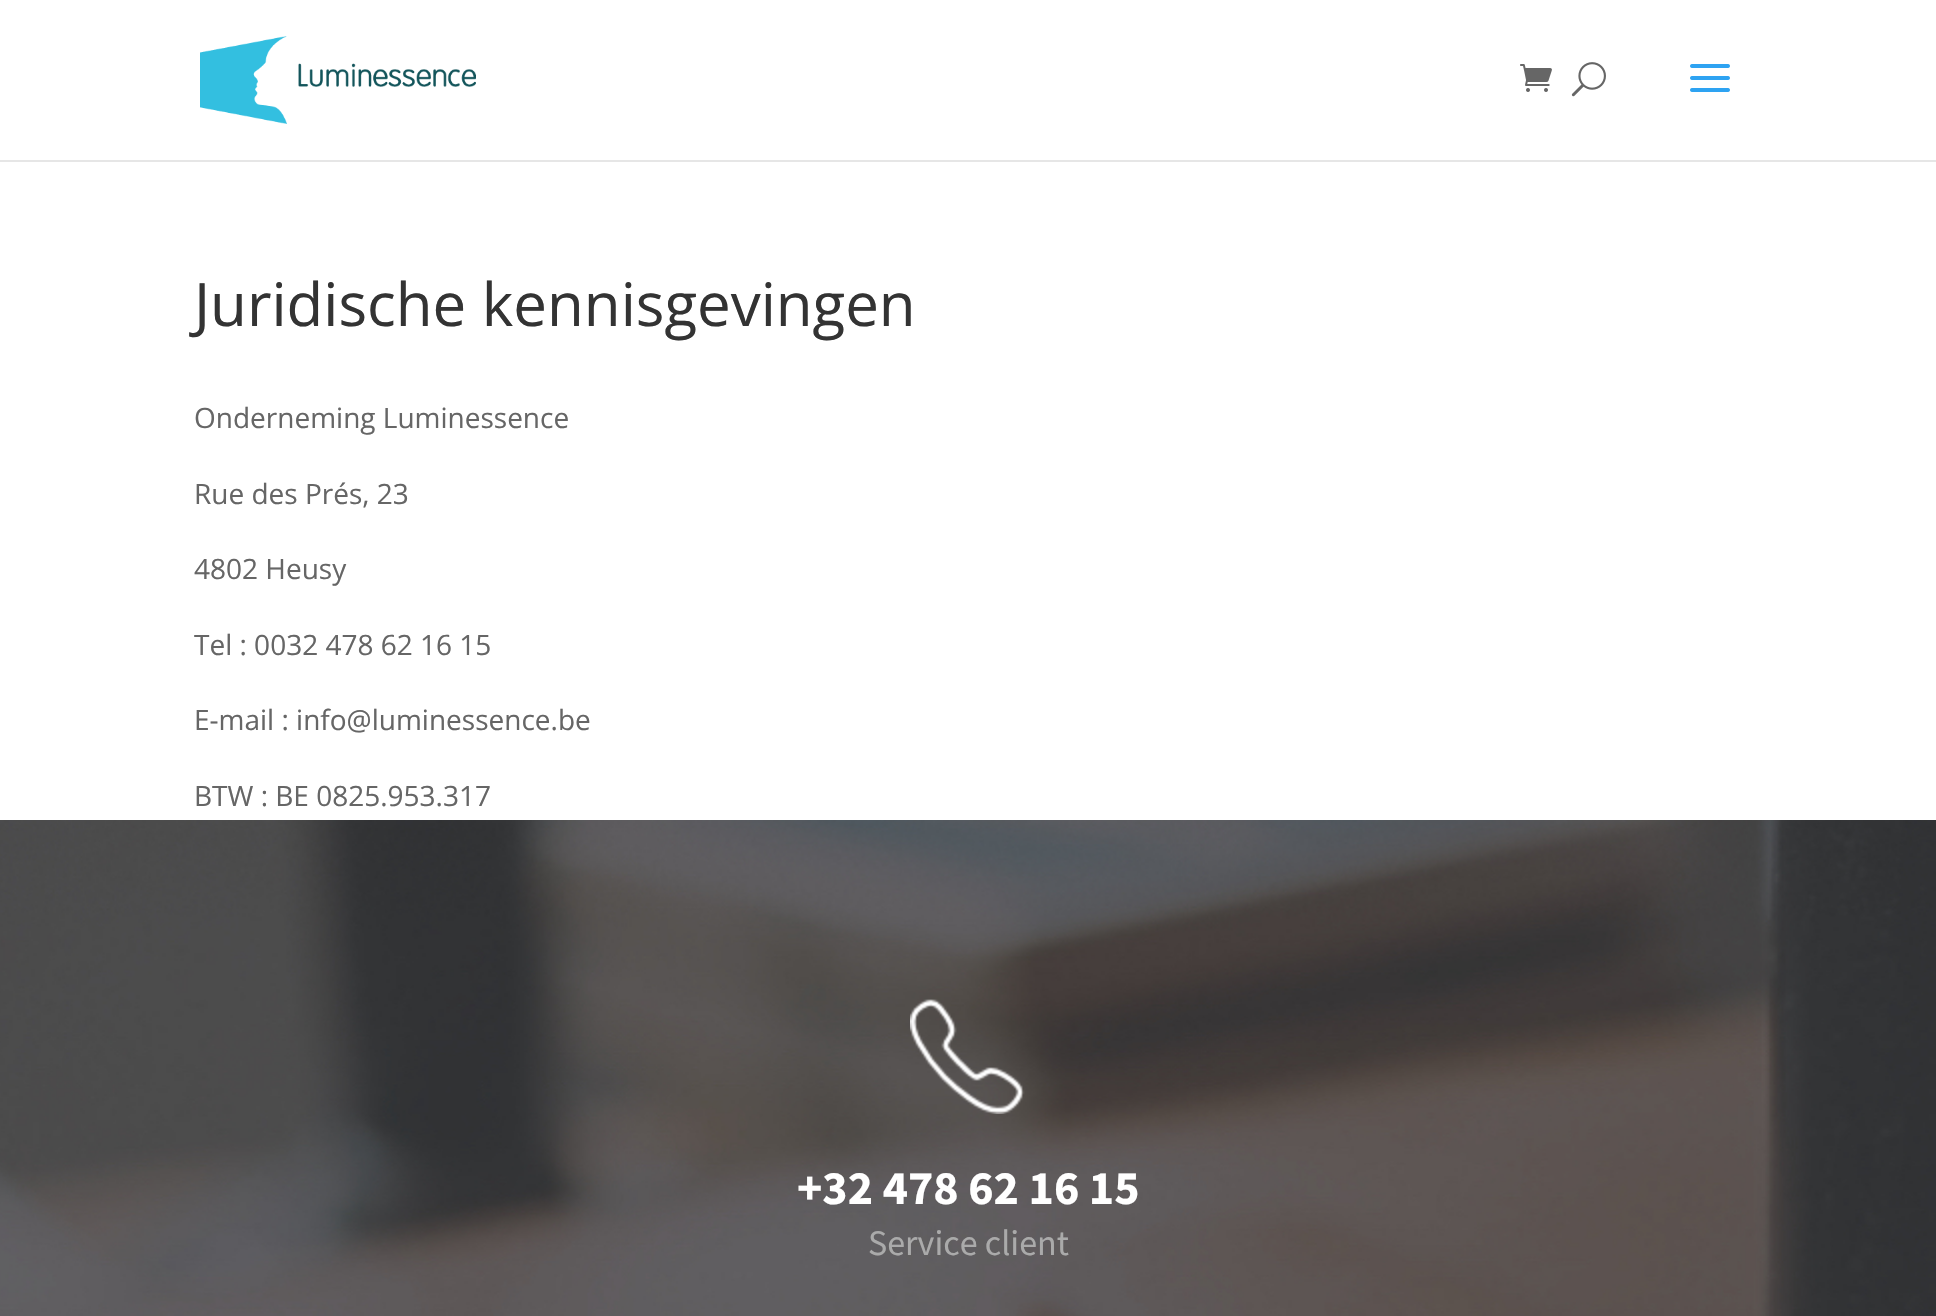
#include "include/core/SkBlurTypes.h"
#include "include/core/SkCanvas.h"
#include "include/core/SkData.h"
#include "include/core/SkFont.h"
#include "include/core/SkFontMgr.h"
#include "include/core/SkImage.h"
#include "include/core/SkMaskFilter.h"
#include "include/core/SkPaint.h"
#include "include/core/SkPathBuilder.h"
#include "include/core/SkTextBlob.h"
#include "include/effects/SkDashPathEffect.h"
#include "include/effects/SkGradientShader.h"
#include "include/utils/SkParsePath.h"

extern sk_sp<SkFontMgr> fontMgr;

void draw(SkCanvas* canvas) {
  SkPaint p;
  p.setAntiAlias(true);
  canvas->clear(SK_ColorWHITE);
  p.setColor(SkColorSetRGB(230, 230, 230));
  canvas->drawRect(SkRect::MakeLTRB(0, 160, 1936, 162), p);
  canvas->drawImageRect(SkImages::DeferredFromEncodedData(SkData::MakeFromFileName("images/1.png")), SkRect::MakeLTRB(200, 36, 476, 124), SkSamplingOptions());
  canvas->drawImageRect(SkImages::DeferredFromEncodedData(SkData::MakeFromFileName("images/2.png")), SkRect::MakeLTRB(1520, 64, 1552, 92), SkSamplingOptions());
  canvas->drawImageRect(SkImages::DeferredFromEncodedData(SkData::MakeFromFileName("images/3.png")), SkRect::MakeLTRB(1571, 62, 1606, 97), SkSamplingOptions());
  canvas->drawImageRect(SkImages::DeferredFromEncodedData(SkData::MakeFromFileName("images/4.png")), SkRect::MakeLTRB(1690, 64, 1730, 92), SkSamplingOptions());
  canvas->drawImageRect(SkImages::DeferredFromEncodedData(SkData::MakeFromFileName("images/5.png")), SkRect::MakeLTRB(0, 820, 1936, 1316), SkSamplingOptions());
  canvas->drawImageRect(SkImages::DeferredFromEncodedData(SkData::MakeFromFileName("images/6.png")), SkRect::MakeLTRB(910, 999, 1025, 1114), SkSamplingOptions());
  SkFont font1(fontMgr->matchFamilyStyle("Open Sans", SkFontStyle::Normal()), 60);
  font1.setSubpixel(true);
  p.setColor(SkColorSetRGB(51, 51, 51));
  canvas->drawString("Juridische kennisgevingen", 194, 326, font1, p);
  SkFont font2(fontMgr->matchFamilyStyle("Open Sans", SkFontStyle::Normal()), 28);
  font2.setSubpixel(true);
  p.setColor(SkColorSetRGB(102, 102, 102));
  canvas->drawString("Onderneming Luminessence", 194, 428, font2, p);
  canvas->drawString("Rue des Prés, 23", 194, 504, font2, p);
  canvas->drawString("4802 Heusy", 194, 579, font2, p);
  canvas->drawString("Tel : 0032 478 62 16 15", 194, 655, font2, p);
  canvas->drawString("E-mail : info@luminessence.be", 194, 730, font2, p);
  canvas->drawString("BTW : BE 0825.953.317", 194, 806, font2, p);
  SkFont font3(fontMgr->matchFamilyStyle("Source Sans Pro", SkFontStyle::Bold()), 48);
  font3.setSubpixel(true);
  p.setColor(SK_ColorWHITE);
  canvas->drawString("+32 478 62 16 15", 797, 1204, font3, p);
  SkFont font4(fontMgr->matchFamilyStyle("Source Sans Pro", SkFontStyle::Normal()), 36);
  font4.setSubpixel(true);
  p.setColor(SkColorSetRGB(170, 170, 170));
  canvas->drawString("Service client", 868, 1255, font4, p);
}
